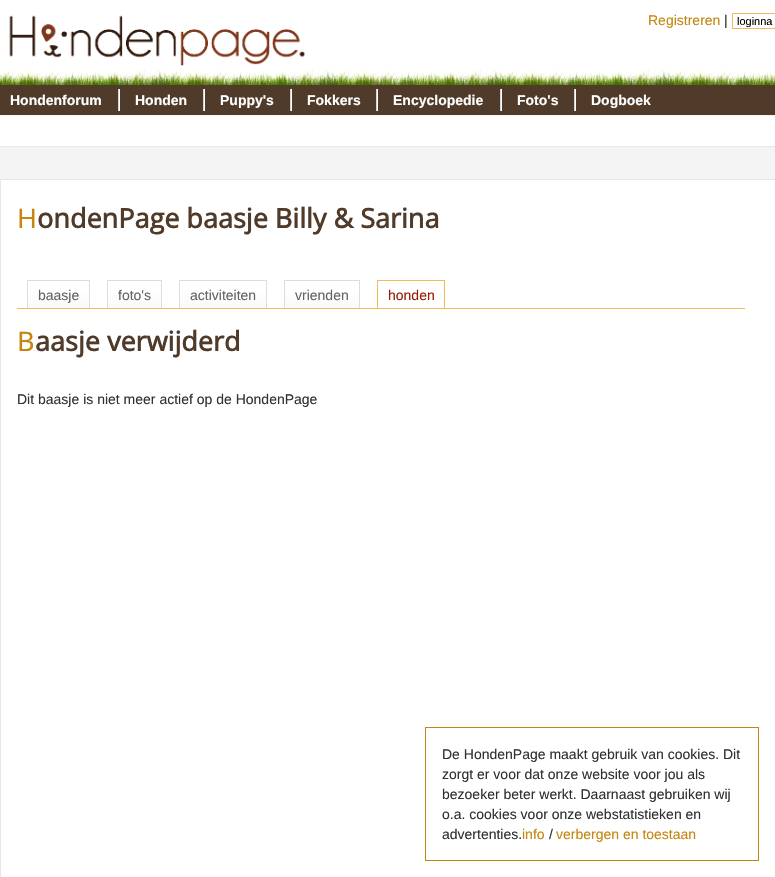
#include "include/core/SkBlurTypes.h"
#include "include/core/SkCanvas.h"
#include "include/core/SkData.h"
#include "include/core/SkFont.h"
#include "include/core/SkFontMgr.h"
#include "include/core/SkImage.h"
#include "include/core/SkMaskFilter.h"
#include "include/core/SkPaint.h"
#include "include/core/SkPathBuilder.h"
#include "include/core/SkTextBlob.h"
#include "include/effects/SkDashPathEffect.h"
#include "include/effects/SkGradientShader.h"
#include "include/utils/SkParsePath.h"

extern sk_sp<SkFontMgr> fontMgr;

void draw(SkCanvas* canvas) {
  SkPaint p;
  p.setAntiAlias(true);
  canvas->clear(SkColorSetRGB(244, 244, 244));
  p.setColor(SK_ColorWHITE);
  canvas->drawRect(SkRect::MakeLTRB(0, 0, 775, 69), p);
  canvas->drawImageRect(SkImages::DeferredFromEncodedData(SkData::MakeFromFileName("images/1.png")), SkRect::MakeLTRB(0, 69, 775, 85), SkSamplingOptions());
  canvas->drawImageRect(SkImages::DeferredFromEncodedData(SkData::MakeFromFileName("images/2.png")), SkRect::MakeLTRB(9, 15, 305, 66), SkSamplingOptions());
  p.setStyle(SkPaint::kStroke_Style);
  p.setStrokeWidth(1);
  p.setColor(SkColorSetRGB(238, 188, 92));
  canvas->drawRect(SkRect::MakeLTRB(732.5f, 13.5f, 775.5f, 28.5f), p);
  p.setStyle(SkPaint::kFill_Style);
  p.setColor(SkColorSetRGB(80, 58, 41));
  canvas->drawRect(SkRect::MakeLTRB(0, 85, 775, 115), p);
  p.setColor(SkColorSetRGB(213, 213, 213));
  canvas->drawRect(SkRect::MakeLTRB(118, 89, 119, 111), p);
  canvas->drawRect(SkRect::MakeLTRB(203, 89, 204, 111), p);
  p.setColor(SK_ColorWHITE);
  canvas->drawRect(SkRect::MakeLTRB(119, 89, 120, 111), p);
  p.setColor(SkColorSetRGB(213, 213, 213));
  canvas->drawRect(SkRect::MakeLTRB(290, 89, 291, 111), p);
  p.setColor(SK_ColorWHITE);
  canvas->drawRect(SkRect::MakeLTRB(204, 89, 205, 111), p);
  p.setColor(SkColorSetRGB(213, 213, 213));
  canvas->drawRect(SkRect::MakeLTRB(376, 89, 377, 111), p);
  p.setColor(SK_ColorWHITE);
  canvas->drawRect(SkRect::MakeLTRB(291, 89, 292, 111), p);
  p.setColor(SkColorSetRGB(213, 213, 213));
  canvas->drawRect(SkRect::MakeLTRB(500, 89, 501, 111), p);
  p.setColor(SK_ColorWHITE);
  canvas->drawRect(SkRect::MakeLTRB(377, 89, 378, 111), p);
  p.setColor(SkColorSetRGB(213, 213, 213));
  canvas->drawRect(SkRect::MakeLTRB(574, 89, 575, 111), p);
  p.setColor(SK_ColorWHITE);
  canvas->drawRect(SkRect::MakeLTRB(501, 89, 502, 111), p);
  canvas->drawRect(SkRect::MakeLTRB(575, 89, 576, 111), p);
  canvas->drawRect(SkRect::MakeLTRB(0, 116, 775, 146), p);
  p.setColor(SkColorSetRGB(231, 231, 231));
  canvas->drawRect(SkRect::MakeLTRB(0, 146, 775, 147), p);
  p.setColor(SK_ColorWHITE);
  canvas->drawRect(SkRect::MakeLTRB(0.5f, 179.5f, 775.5f, 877.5f), p);
  p.setStyle(SkPaint::kStroke_Style);
  p.setColor(SkColorSetRGB(231, 231, 231));
  canvas->drawRect(SkRect::MakeLTRB(0.5f, 179.5f, 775.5f, 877.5f), p);
  p.setStyle(SkPaint::kFill_Style);
  {
    const SkColor colors[] = {SK_ColorWHITE, SkColorSetRGB(250, 250, 250)};
    const float stops[] = {0, 1};
    const SkPoint ends[] = {{59, 281}, {59, 308}};
    p.setShader(SkGradientShader::MakeLinear(ends, colors, stops, 2, SkTileMode::kClamp));
    p.setAlpha(255);
  }
  canvas->drawRect(SkRect::MakeLTRB(28, 295, 89, 308), p);
  p.setShader(nullptr);
  p.setColor(SkColorSetRGB(221, 221, 221));
  canvas->drawRect(SkRect::MakeLTRB(27, 280, 90, 281), p);
  canvas->drawRect(SkRect::MakeLTRB(89, 280, 90, 308), p);
  canvas->drawRect(SkRect::MakeLTRB(27, 280, 28, 308), p);
  {
    const SkColor colors[] = {SK_ColorWHITE, SkColorSetRGB(250, 250, 250)};
    const float stops[] = {0, 1};
    const SkPoint ends[] = {{135, 281}, {135, 308}};
    p.setShader(SkGradientShader::MakeLinear(ends, colors, stops, 2, SkTileMode::kClamp));
    p.setAlpha(255);
  }
  canvas->drawRect(SkRect::MakeLTRB(108, 295, 161, 308), p);
  p.setShader(nullptr);
  p.setColor(SkColorSetRGB(221, 221, 221));
  canvas->drawRect(SkRect::MakeLTRB(107, 280, 162, 281), p);
  canvas->drawRect(SkRect::MakeLTRB(161, 280, 162, 308), p);
  canvas->drawRect(SkRect::MakeLTRB(107, 280, 108, 308), p);
  {
    const SkColor colors[] = {SK_ColorWHITE, SkColorSetRGB(250, 250, 250)};
    const float stops[] = {0, 1};
    const SkPoint ends[] = {{223, 281}, {223, 308}};
    p.setShader(SkGradientShader::MakeLinear(ends, colors, stops, 2, SkTileMode::kClamp));
    p.setAlpha(255);
  }
  canvas->drawRect(SkRect::MakeLTRB(180, 295, 266, 308), p);
  p.setShader(nullptr);
  p.setColor(SkColorSetRGB(221, 221, 221));
  canvas->drawRect(SkRect::MakeLTRB(179, 280, 267, 281), p);
  canvas->drawRect(SkRect::MakeLTRB(266, 280, 267, 308), p);
  canvas->drawRect(SkRect::MakeLTRB(179, 280, 180, 308), p);
  {
    const SkColor colors[] = {SK_ColorWHITE, SkColorSetRGB(250, 250, 250)};
    const float stops[] = {0, 1};
    const SkPoint ends[] = {{322, 281}, {322, 308}};
    p.setShader(SkGradientShader::MakeLinear(ends, colors, stops, 2, SkTileMode::kClamp));
    p.setAlpha(255);
  }
  canvas->drawRect(SkRect::MakeLTRB(285, 295, 359, 308), p);
  p.setShader(nullptr);
  p.setColor(SkColorSetRGB(221, 221, 221));
  canvas->drawRect(SkRect::MakeLTRB(284, 280, 360, 281), p);
  canvas->drawRect(SkRect::MakeLTRB(359, 280, 360, 308), p);
  canvas->drawRect(SkRect::MakeLTRB(284, 280, 285, 308), p);
  p.setColor(SkColorSetRGB(238, 188, 92));
  canvas->drawRect(SkRect::MakeLTRB(377, 280, 445, 281), p);
  canvas->drawRect(SkRect::MakeLTRB(444, 280, 445, 308), p);
  canvas->drawRect(SkRect::MakeLTRB(377, 280, 378, 308), p);
  canvas->drawRect(SkRect::MakeLTRB(17, 308, 745, 309), p);
  p.setStyle(SkPaint::kStroke_Style);
  p.setColor(SkColorSetRGB(196, 134, 15));
  canvas->drawRect(SkRect::MakeLTRB(425.5f, 727.5f, 758.5f, 860.5f), p);
  SkFont font1(fontMgr->matchFamilyStyle("Liberation Sans", SkFontStyle::Normal()), 14);
  font1.setSubpixel(true);
  p.setStyle(SkPaint::kFill_Style);
  canvas->drawString("Registreren", 648, 25, font1, p);
  p.setColor(SkColorSetRGB(48, 48, 48));
  canvas->drawString("|", 724, 25, font1, p);
  canvas->save();
  canvas->clipRect(SkRect::MakeLTRB(737, 15, 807, 27));
  SkFont font2(fontMgr->matchFamilyStyle("Liberation Sans", SkFontStyle::Normal()), 11);
  font2.setSubpixel(true);
  p.setColor(SK_ColorBLACK);
  canvas->drawString("loginna", 737, 25, font2, p);
  canvas->restore();
  SkFont font3(fontMgr->matchFamilyStyle("Liberation Sans", SkFontStyle::Bold()), 14);
  font3.setSubpixel(true);
  p.setColor(SK_ColorWHITE);
  canvas->drawString("Hondenforum", 10, 105, font3, p);
  canvas->drawString("Honden", 135, 105, font3, p);
  canvas->drawString("Puppy's", 220, 105, font3, p);
  canvas->drawString("Fokkers", 307, 105, font3, p);
  canvas->drawString("Encyclopedie", 393, 105, font3, p);
  canvas->drawString("Foto's", 517, 105, font3, p);
  canvas->drawString("Dogboek", 591, 105, font3, p);
  SkFont font4(fontMgr->matchFamilyStyle("Noto Sans", SkFontStyle::Normal()), 27);
  font4.setSubpixel(true);
  p.setColor(SkColorSetRGB(196, 134, 15));
  canvas->drawString("H", 17, 228, font4, p);
  SkFont font5(fontMgr->matchFamilyStyle("Open Sans", SkFontStyle::Bold()), 27);
  font5.setSubpixel(true);
  p.setColor(SkColorSetRGB(80, 58, 41));
  canvas->drawString("ondenPage baasje Billy & Sarina", 37, 228, font5, p);
  p.setColor(SkColorSetRGB(97, 100, 100));
  canvas->drawString("baasje", 38, 300, font1, p);
  canvas->drawString("foto's", 118, 300, font1, p);
  canvas->drawString("activiteiten", 190, 300, font1, p);
  canvas->drawString("vrienden", 295, 300, font1, p);
  p.setColor(SkColorSetRGB(153, 28, 0));
  canvas->drawString("honden", 388, 300, font1, p);
  p.setColor(SkColorSetRGB(196, 134, 15));
  canvas->drawString("B", 17, 351, font4, p);
  p.setColor(SkColorSetRGB(80, 58, 41));
  canvas->drawString("aasje verwijderd", 35, 351, font5, p);
  p.setColor(SkColorSetRGB(48, 48, 48));
  canvas->drawString("Dit baasje is niet meer actief op de HondenPage", 17, 404, font1, p);
  canvas->drawString("De HondenPage maakt gebruik van cookies. Dit", 442, 759, font1, p);
  canvas->drawString("zorgt er voor dat onze website voor jou als", 442, 779, font1, p);
  canvas->drawString("bezoeker beter werkt. Daarnaast gebruiken wij", 442, 799, font1, p);
  canvas->drawString("o.a. cookies voor onze webstatistieken en", 442, 819, font1, p);
  canvas->drawString("advertenties.", 442, 839, font1, p);
  p.setColor(SkColorSetRGB(196, 134, 15));
  canvas->drawString("info", 522, 839, font1, p);
  p.setColor(SkColorSetRGB(48, 48, 48));
  canvas->drawString("/", 549, 839, font1, p);
  p.setColor(SkColorSetRGB(196, 134, 15));
  canvas->drawString("verbergen en toestaan", 556, 839, font1, p);
}
